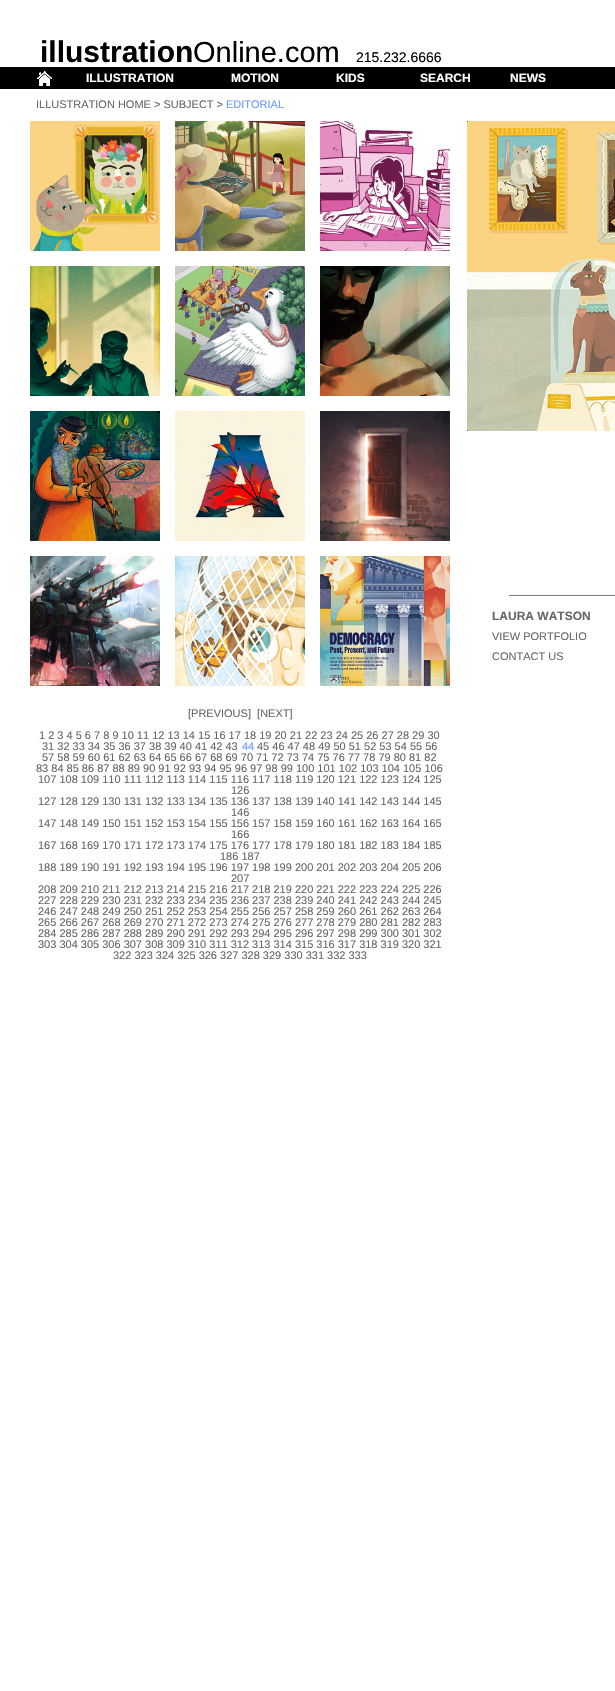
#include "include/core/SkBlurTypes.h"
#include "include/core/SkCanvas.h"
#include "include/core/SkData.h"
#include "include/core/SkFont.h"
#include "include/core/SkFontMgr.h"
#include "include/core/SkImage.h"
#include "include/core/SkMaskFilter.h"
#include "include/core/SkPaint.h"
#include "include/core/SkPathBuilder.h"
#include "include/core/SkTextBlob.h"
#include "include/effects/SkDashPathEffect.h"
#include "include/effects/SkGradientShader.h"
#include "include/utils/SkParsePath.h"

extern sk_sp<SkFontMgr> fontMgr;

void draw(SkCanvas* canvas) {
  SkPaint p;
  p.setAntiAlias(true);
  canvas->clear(SK_ColorWHITE);
  p.setColor(SK_ColorBLACK);
  canvas->drawRect(SkRect::MakeLTRB(0, 67, 615, 89), p);
  canvas->drawImageRect(SkImages::DeferredFromEncodedData(SkData::MakeFromFileName("images/1.png")), SkRect::MakeLTRB(37, 71, 52, 86), SkSamplingOptions());
  canvas->drawImageRect(SkImages::DeferredFromEncodedData(SkData::MakeFromFileName("images/2.png")), SkRect::MakeLTRB(30, 266, 160, 396), SkSamplingOptions());
  canvas->drawImageRect(SkImages::DeferredFromEncodedData(SkData::MakeFromFileName("images/3.png")), SkRect::MakeLTRB(175, 266, 305, 396), SkSamplingOptions());
  canvas->drawImageRect(SkImages::DeferredFromEncodedData(SkData::MakeFromFileName("images/4.png")), SkRect::MakeLTRB(320, 266, 450, 396), SkSamplingOptions());
  canvas->drawImageRect(SkImages::DeferredFromEncodedData(SkData::MakeFromFileName("images/5.png")), SkRect::MakeLTRB(30, 411, 160, 541), SkSamplingOptions());
  canvas->drawImageRect(SkImages::DeferredFromEncodedData(SkData::MakeFromFileName("images/6.png")), SkRect::MakeLTRB(175, 411, 305, 541), SkSamplingOptions());
  canvas->drawImageRect(SkImages::DeferredFromEncodedData(SkData::MakeFromFileName("images/7.png")), SkRect::MakeLTRB(320, 411, 450, 541), SkSamplingOptions());
  canvas->drawImageRect(SkImages::DeferredFromEncodedData(SkData::MakeFromFileName("images/8.png")), SkRect::MakeLTRB(30, 556, 160, 686), SkSamplingOptions());
  canvas->drawImageRect(SkImages::DeferredFromEncodedData(SkData::MakeFromFileName("images/9.png")), SkRect::MakeLTRB(175, 556, 305, 686), SkSamplingOptions());
  canvas->drawImageRect(SkImages::DeferredFromEncodedData(SkData::MakeFromFileName("images/10.png")), SkRect::MakeLTRB(320, 556, 450, 686), SkSamplingOptions());
  canvas->drawImageRect(SkImages::DeferredFromEncodedData(SkData::MakeFromFileName("images/11.png")), SkRect::MakeLTRB(30, 121, 160, 251), SkSamplingOptions());
  canvas->drawImageRect(SkImages::DeferredFromEncodedData(SkData::MakeFromFileName("images/12.png")), SkRect::MakeLTRB(175, 121, 305, 251), SkSamplingOptions());
  canvas->drawImageRect(SkImages::DeferredFromEncodedData(SkData::MakeFromFileName("images/13.png")), SkRect::MakeLTRB(320, 121, 450, 251), SkSamplingOptions());
  canvas->drawImageRect(SkImages::DeferredFromEncodedData(SkData::MakeFromFileName("images/14.png")), SkRect::MakeLTRB(467, 121, 615, 431), SkSamplingOptions());
  p.setColor(SkColorSetRGB(121, 119, 120));
  canvas->drawRect(SkRect::MakeLTRB(509, 595, 615, 596), p);
  SkFont font1(fontMgr->matchFamilyStyle("Liberation Sans", SkFontStyle::Bold()), 30);
  font1.setSubpixel(true);
  p.setColor(SK_ColorBLACK);
  canvas->drawString("illustration", 40, 62, font1, p);
  SkFont font2(fontMgr->matchFamilyStyle("Liberation Sans", SkFontStyle::Normal()), 29);
  font2.setSubpixel(true);
  canvas->drawString("Online.com", 193, 62, font2, p);
  SkFont font3(fontMgr->matchFamilyStyle("Liberation Sans", SkFontStyle::Normal()), 14);
  font3.setSubpixel(true);
  canvas->drawString("215.232.6666", 356, 62, font3, p);
  SkFont font4(fontMgr->matchFamilyStyle("Liberation Sans", SkFontStyle::Bold()), 12);
  font4.setSubpixel(true);
  p.setColor(SK_ColorWHITE);
  canvas->drawString("ILLUSTRATION", 86, 82, font4, p);
  canvas->drawString("MOTION", 231, 82, font4, p);
  canvas->drawString("KIDS", 336, 82, font4, p);
  canvas->drawString("SEARCH", 420, 82, font4, p);
  canvas->drawString("NEWS", 510, 82, font4, p);
  SkFont font5(fontMgr->matchFamilyStyle("Liberation Sans", SkFontStyle::Normal()), 11);
  font5.setSubpixel(true);
  p.setColor(SkColorSetRGB(102, 102, 102));
  canvas->drawString("ILLUSTRATION HOME > SUBJECT >", 36, 108, font5, p);
  p.setColor(SkColorSetRGB(102, 153, 255));
  canvas->drawString("EDITORIAL", 226, 108, font5, p);
  p.setColor(SkColorSetRGB(102, 102, 102));
  canvas->drawString("LAURA WATSON", 492, 620, font4, p);
  canvas->drawString("VIEW PORTFOLIO", 492, 640, font5, p);
  canvas->drawString("CONTACT US", 492, 660, font5, p);
  canvas->drawString("[PREVIOUS]  [NEXT]", 188, 717, font5, p);
  canvas->drawString("1 2 3 4 5 6 7 8 9 10 11 12 13 14 15 16 17 18 19 20 21 22 23 24 25 26 27 28 29 30", 39, 739, font5, p);
  canvas->drawString("31 32 33 34 35 36 37 38 39 40 41 42 43", 42, 750, font5, p);
  p.setColor(SkColorSetRGB(102, 153, 255));
  canvas->drawString("44", 242, 750, font5, p);
  p.setColor(SkColorSetRGB(102, 102, 102));
  canvas->drawString("45 46 47 48 49 50 51 52 53 54 55 56", 257, 750, font5, p);
  canvas->drawString("57 58 59 60 61 62 63 64 65 66 67 68 69 70 71 72 73 74 75 76 77 78 79 80 81 82", 42, 761, font5, p);
  canvas->drawString("83 84 85 86 87 88 89 90 91 92 93 94 95 96 97 98 99 100 101 102 103 104 105 106", 36, 772, font5, p);
  canvas->drawString("107 108 109 110 111 112 113 114 115 116 117 118 119 120 121 122 123 124 125", 38, 783, font5, p);
  canvas->drawString("126", 231, 794, font5, p);
  canvas->drawString("127 128 129 130 131 132 133 134 135 136 137 138 139 140 141 142 143 144 145", 38, 805, font5, p);
  canvas->drawString("146", 231, 816, font5, p);
  canvas->drawString("147 148 149 150 151 152 153 154 155 156 157 158 159 160 161 162 163 164 165", 38, 827, font5, p);
  canvas->drawString("166", 231, 838, font5, p);
  canvas->drawString("167 168 169 170 171 172 173 174 175 176 177 178 179 180 181 182 183 184 185", 38, 849, font5, p);
  canvas->drawString("186 187", 220, 860, font5, p);
  canvas->drawString("188 189 190 191 192 193 194 195 196 197 198 199 200 201 202 203 204 205 206", 38, 871, font5, p);
  canvas->drawString("207", 231, 882, font5, p);
  canvas->drawString("208 209 210 211 212 213 214 215 216 217 218 219 220 221 222 223 224 225 226", 38, 893, font5, p);
  canvas->drawString("227 228 229 230 231 232 233 234 235 236 237 238 239 240 241 242 243 244 245", 38, 904, font5, p);
  canvas->drawString("246 247 248 249 250 251 252 253 254 255 256 257 258 259 260 261 262 263 264", 38, 915, font5, p);
  canvas->drawString("265 266 267 268 269 270 271 272 273 274 275 276 277 278 279 280 281 282 283", 38, 926, font5, p);
  canvas->drawString("284 285 286 287 288 289 290 291 292 293 294 295 296 297 298 299 300 301 302", 38, 937, font5, p);
  canvas->drawString("303 304 305 306 307 308 309 310 311 312 313 314 315 316 317 318 319 320 321", 38, 948, font5, p);
  canvas->drawString("322 323 324 325 326 327 328 329 330 331 332 333", 113, 959, font5, p);
}
